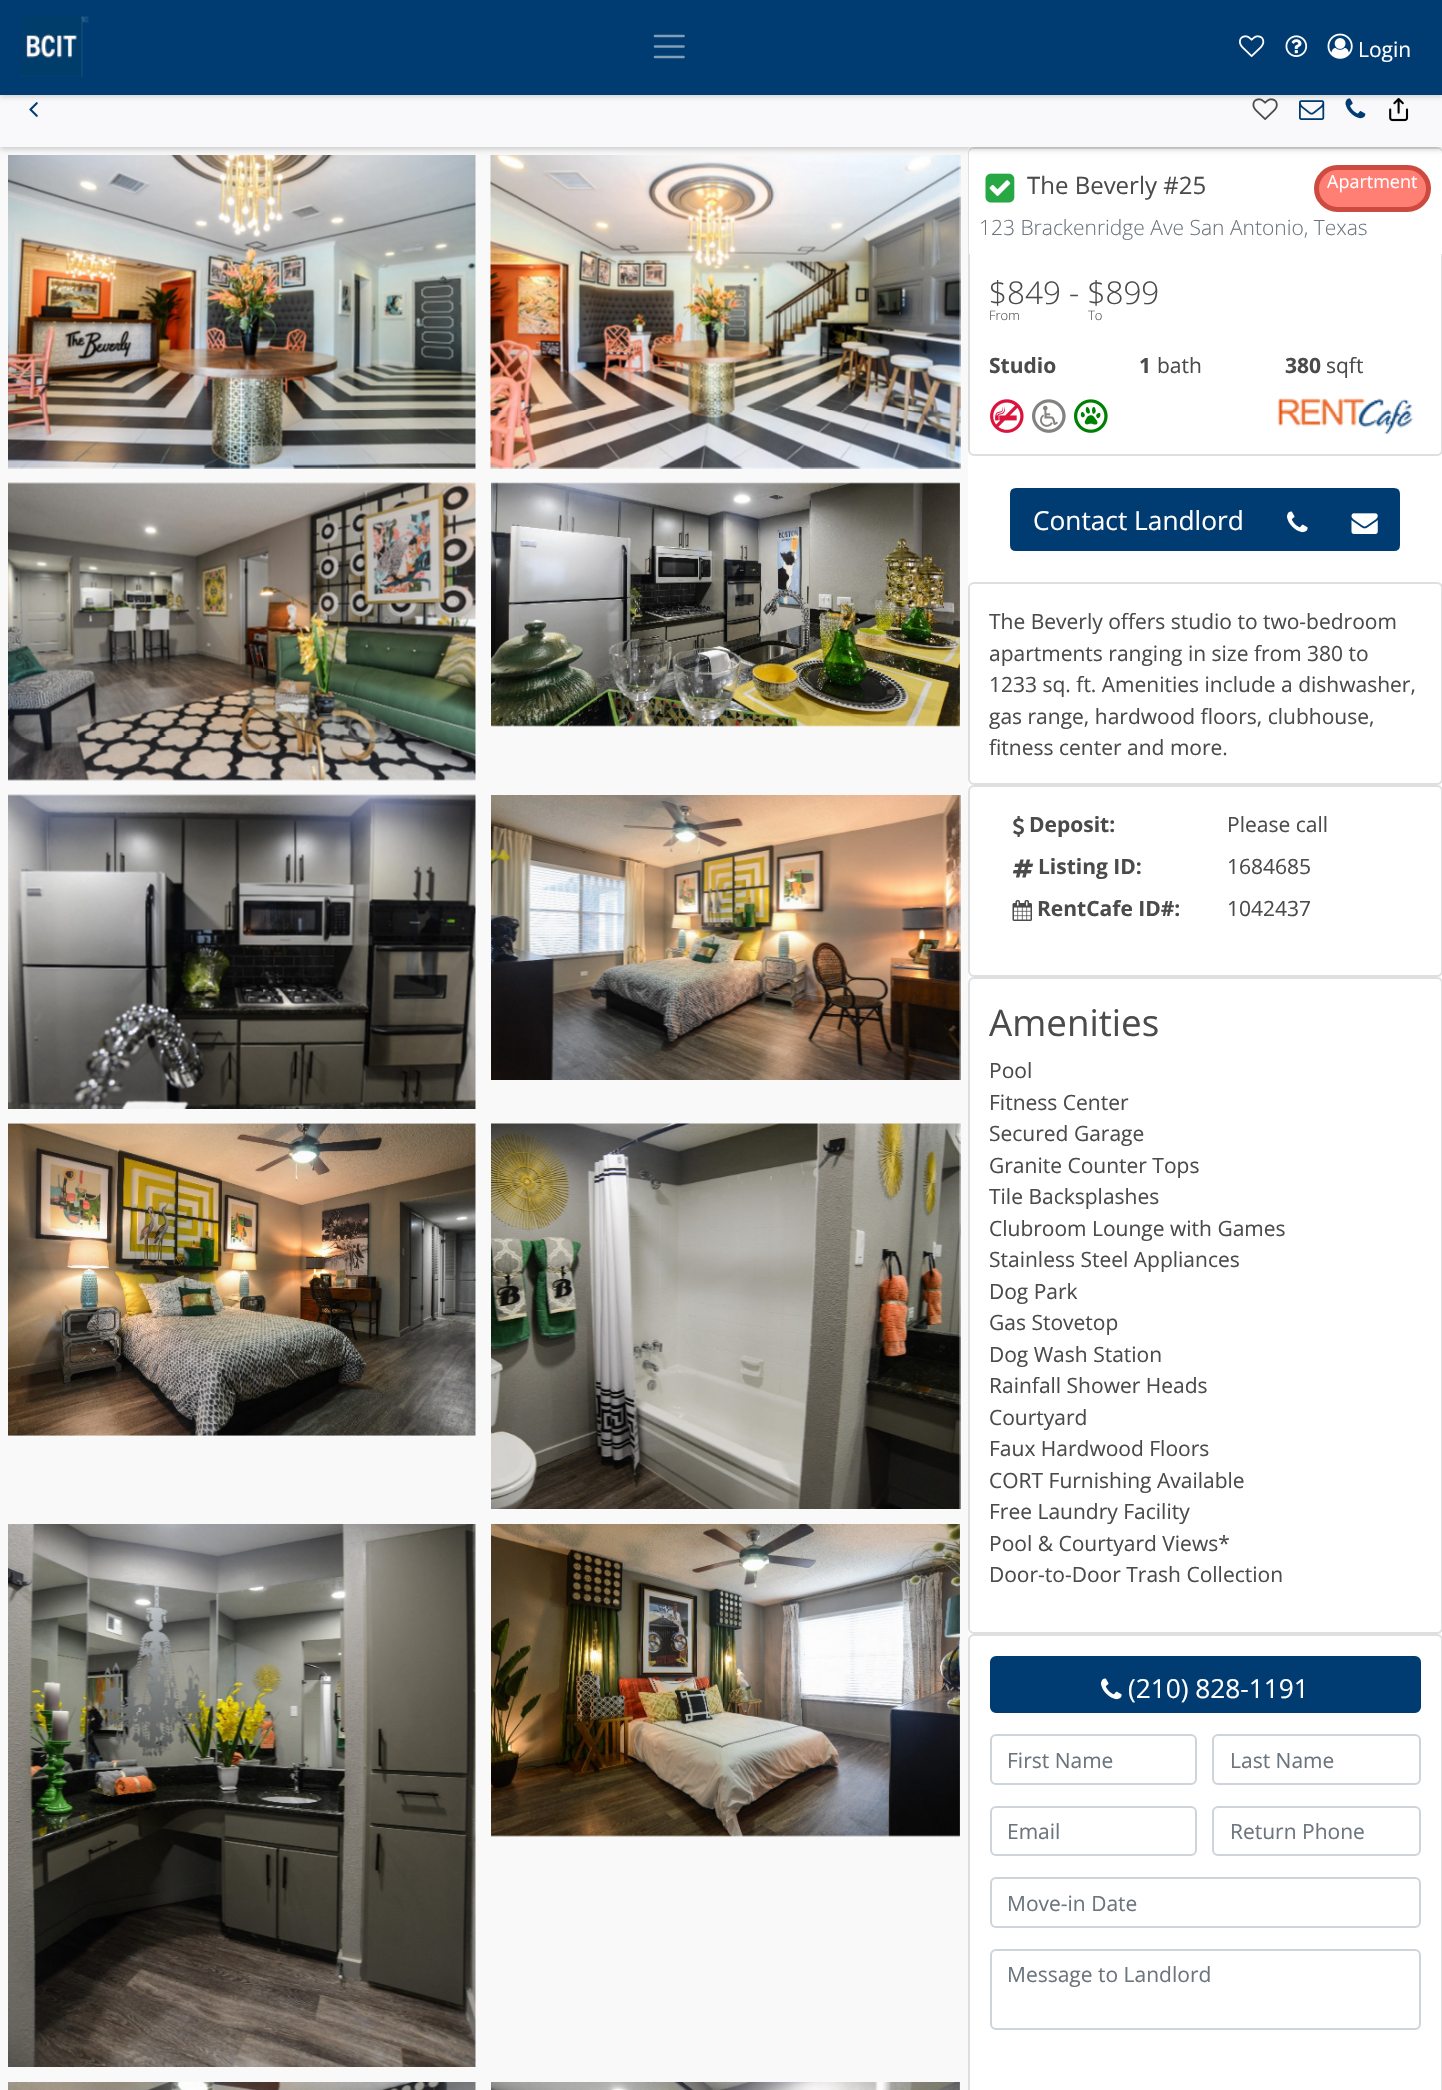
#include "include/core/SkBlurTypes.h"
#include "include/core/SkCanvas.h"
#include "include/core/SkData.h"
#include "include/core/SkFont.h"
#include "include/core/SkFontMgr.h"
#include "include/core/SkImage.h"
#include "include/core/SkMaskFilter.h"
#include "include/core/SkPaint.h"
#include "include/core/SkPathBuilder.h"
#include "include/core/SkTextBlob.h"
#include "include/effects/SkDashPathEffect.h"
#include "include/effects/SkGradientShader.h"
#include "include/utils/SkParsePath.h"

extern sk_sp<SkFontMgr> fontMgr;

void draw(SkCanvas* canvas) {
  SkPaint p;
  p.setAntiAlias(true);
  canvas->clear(SK_ColorWHITE);
  p.setColor(SkColorSetRGB(249, 249, 249));
  canvas->drawRect(SkRect::MakeLTRB(0, 147, 968, 2090), p);
  canvas->drawImageRect(SkImages::DeferredFromEncodedData(SkData::MakeFromFileName("images/10.png")), SkRect::MakeLTRB(8, 155, 476, 469), SkSamplingOptions());
  canvas->drawImageRect(SkImages::DeferredFromEncodedData(SkData::MakeFromFileName("images/11.png")), SkRect::MakeLTRB(490, 155, 961, 469), SkSamplingOptions());
  p.setStyle(SkPaint::kStroke_Style);
  p.setStrokeWidth(2);
  p.setColor(SkColorSetRGB(223, 223, 223));
  canvas->drawRoundRect(SkRect::MakeLTRB(969, 148, 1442, 455), 5, 5, p);
  p.setStyle(SkPaint::kFill_Style);
  p.setColor(SK_ColorWHITE);
  canvas->drawPath(SkPathBuilder().moveTo(973, 149).lineTo(1438, 149).cubicTo(1440, 149, 1442, 151, 1442, 153).lineTo(1442, 254).lineTo(969, 254).lineTo(969, 153).cubicTo(969, 151, 971, 149, 973, 149).close().detach(), p);
  p.setColor(SkColorSetARGB(51, 0, 0, 0));
  p.setMaskFilter(SkMaskFilter::MakeBlur(kNormal_SkBlurStyle, 3));
  canvas->drawRect(SkRect::MakeLTRB(0, 75, 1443, 149), p);
  p.setMaskFilter(nullptr);
  p.setColor(SkColorSetRGB(249, 249, 251));
  canvas->drawRect(SkRect::MakeLTRB(0, 95, 1442, 147), p);
  canvas->drawImageRect(SkImages::DeferredFromEncodedData(SkData::MakeFromFileName("images/5.png")), SkRect::MakeLTRB(29, 102, 38, 117), SkSamplingOptions());
  canvas->drawImageRect(SkImages::DeferredFromEncodedData(SkData::MakeFromFileName("images/6.png")), SkRect::MakeLTRB(1252, 98, 1278, 120), SkSamplingOptions());
  canvas->drawImageRect(SkImages::DeferredFromEncodedData(SkData::MakeFromFileName("images/7.png")), SkRect::MakeLTRB(1299, 100, 1325, 120), SkSamplingOptions());
  canvas->drawImageRect(SkImages::DeferredFromEncodedData(SkData::MakeFromFileName("images/8.png")), SkRect::MakeLTRB(1345, 98, 1366, 119), SkSamplingOptions());
  canvas->drawImageRect(SkImages::DeferredFromEncodedData(SkData::MakeFromFileName("images/9.png")), SkRect::MakeLTRB(1389, 98, 1409, 122), SkSamplingOptions());
  p.setColor(SkColorSetARGB(51, 0, 0, 0));
  p.setMaskFilter(SkMaskFilter::MakeBlur(kNormal_SkBlurStyle, 3));
  canvas->drawRect(SkRect::MakeLTRB(0, 2, 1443, 96), p);
  p.setMaskFilter(nullptr);
  p.setColor(SkColorSetRGB(0, 60, 113));
  canvas->drawRect(SkRect::MakeLTRB(0, 0, 1442, 95), p);
  canvas->drawImageRect(SkImages::DeferredFromEncodedData(SkData::MakeFromFileName("images/1.png")), SkRect::MakeLTRB(21, 16, 89, 77), SkSamplingOptions());
  p.setStyle(SkPaint::kStroke_Style);
  p.setStrokeWidth(2.6f);
  p.setStrokeCap(SkPaint::kRound_Cap);
  p.setColor(SkColorSetRGB(128, 158, 184));
  canvas->drawPath(SkPathBuilder().moveTo(655, 36).lineTo(683.5f, 36).moveTo(655, 46.5f).lineTo(683.5f, 46.5f).moveTo(655, 57).lineTo(683.5f, 57).detach(), p);
  canvas->drawImageRect(SkImages::DeferredFromEncodedData(SkData::MakeFromFileName("images/2.png")), SkRect::MakeLTRB(1239, 35, 1265, 57), SkSamplingOptions());
  canvas->drawImageRect(SkImages::DeferredFromEncodedData(SkData::MakeFromFileName("images/3.png")), SkRect::MakeLTRB(1285, 35, 1308, 57), SkSamplingOptions());
  canvas->drawImageRect(SkImages::DeferredFromEncodedData(SkData::MakeFromFileName("images/4.png")), SkRect::MakeLTRB(1327, 33, 1353, 59), SkSamplingOptions());
  canvas->drawImageRect(SkImages::DeferredFromEncodedData(SkData::MakeFromFileName("images/12.png")), SkRect::MakeLTRB(8, 482, 476, 781), SkSamplingOptions());
  canvas->drawImageRect(SkImages::DeferredFromEncodedData(SkData::MakeFromFileName("images/13.png")), SkRect::MakeLTRB(491, 482, 960, 727), SkSamplingOptions());
  canvas->drawImageRect(SkImages::DeferredFromEncodedData(SkData::MakeFromFileName("images/14.png")), SkRect::MakeLTRB(8, 794, 476, 1109), SkSamplingOptions());
  canvas->drawImageRect(SkImages::DeferredFromEncodedData(SkData::MakeFromFileName("images/15.png")), SkRect::MakeLTRB(491, 795, 961, 1080), SkSamplingOptions());
  canvas->drawImageRect(SkImages::DeferredFromEncodedData(SkData::MakeFromFileName("images/16.png")), SkRect::MakeLTRB(8, 1123, 476, 1436), SkSamplingOptions());
  canvas->drawImageRect(SkImages::DeferredFromEncodedData(SkData::MakeFromFileName("images/17.png")), SkRect::MakeLTRB(491, 1123, 961, 1509), SkSamplingOptions());
  canvas->drawImageRect(SkImages::DeferredFromEncodedData(SkData::MakeFromFileName("images/18.png")), SkRect::MakeLTRB(8, 1524, 476, 2067), SkSamplingOptions());
  canvas->drawImageRect(SkImages::DeferredFromEncodedData(SkData::MakeFromFileName("images/19.png")), SkRect::MakeLTRB(491, 1524, 960, 1837), SkSamplingOptions());
  canvas->drawImageRect(SkImages::DeferredFromEncodedData(SkData::MakeFromFileName("images/20.png")), SkRect::MakeLTRB(8, 2082, 476, 2090), SkSamplingOptions());
  canvas->drawImageRect(SkImages::DeferredFromEncodedData(SkData::MakeFromFileName("images/21.png")), SkRect::MakeLTRB(491, 2082, 960, 2090), SkSamplingOptions());
  canvas->drawImageRect(SkImages::DeferredFromEncodedData(SkData::MakeFromFileName("images/22.png")), SkRect::MakeLTRB(985, 173, 1015, 203), SkSamplingOptions());
  p.setStyle(SkPaint::kFill_Style);
  p.setColor(SkColorSetRGB(255, 127, 116));
  canvas->drawRoundRect(SkRect::MakeLTRB(1316.5f, 167.5f, 1428.5f, 209.5f), 21, 21, p);
  p.setStyle(SkPaint::kStroke_Style);
  p.setStrokeWidth(5);
  p.setStrokeCap(SkPaint::kButt_Cap);
  p.setColor(SkColorSetRGB(205, 74, 63));
  canvas->drawRoundRect(SkRect::MakeLTRB(1316.5f, 167.5f, 1428.5f, 209.5f), 21, 21, p);
  canvas->drawImageRect(SkImages::DeferredFromEncodedData(SkData::MakeFromFileName("images/23.png")), SkRect::MakeLTRB(990, 399, 1024, 433), SkSamplingOptions());
  canvas->drawImageRect(SkImages::DeferredFromEncodedData(SkData::MakeFromFileName("images/24.png")), SkRect::MakeLTRB(1032, 399, 1066, 433), SkSamplingOptions());
  canvas->drawImageRect(SkImages::DeferredFromEncodedData(SkData::MakeFromFileName("images/25.png")), SkRect::MakeLTRB(1074, 399, 1108, 433), SkSamplingOptions());
  canvas->drawImageRect(SkImages::DeferredFromEncodedData(SkData::MakeFromFileName("images/26.png")), SkRect::MakeLTRB(1277, 398, 1414, 434), SkSamplingOptions());
  p.setStyle(SkPaint::kFill_Style);
  p.setColor(SkColorSetRGB(0, 60, 113));
  canvas->drawPath(SkPathBuilder().moveTo(1016, 489).lineTo(1265, 489).lineTo(1265, 550).lineTo(1016, 550).cubicTo(1013, 550, 1011, 548, 1011, 545).lineTo(1011, 494).cubicTo(1011, 491, 1013, 489, 1016, 489).close().detach(), p);
  p.setStyle(SkPaint::kStroke_Style);
  p.setStrokeWidth(2);
  canvas->drawPath(SkPathBuilder().moveTo(1016, 489).lineTo(1265, 489).lineTo(1265, 550).lineTo(1016, 550).cubicTo(1013, 550, 1011, 548, 1011, 545).lineTo(1011, 494).cubicTo(1011, 491, 1013, 489, 1016, 489).close().detach(), p);
  p.setStyle(SkPaint::kFill_Style);
  canvas->drawRect(SkRect::MakeLTRB(1266, 488, 1329, 551), p);
  canvas->drawImageRect(SkImages::DeferredFromEncodedData(SkData::MakeFromFileName("images/27.png")), SkRect::MakeLTRB(1287, 511, 1308, 533), SkSamplingOptions());
  canvas->drawPath(SkPathBuilder().moveTo(1330, 489).lineTo(1394, 489).cubicTo(1397, 489, 1399, 491, 1399, 494).lineTo(1399, 545).cubicTo(1399, 548, 1397, 550, 1394, 550).lineTo(1330, 550).close().detach(), p);
  p.setStyle(SkPaint::kStroke_Style);
  canvas->drawPath(SkPathBuilder().moveTo(1330, 489).lineTo(1394, 489).cubicTo(1397, 489, 1399, 491, 1399, 494).lineTo(1399, 545).cubicTo(1399, 548, 1397, 550, 1394, 550).lineTo(1330, 550).close().detach(), p);
  canvas->drawImageRect(SkImages::DeferredFromEncodedData(SkData::MakeFromFileName("images/28.png")), SkRect::MakeLTRB(1351, 513, 1378, 534), SkSamplingOptions());
  p.setColor(SkColorSetRGB(223, 223, 223));
  canvas->drawRoundRect(SkRect::MakeLTRB(969, 583, 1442, 784), 5, 5, p);
  canvas->drawRoundRect(SkRect::MakeLTRB(969, 786, 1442, 976), 5, 5, p);
  canvas->drawImageRect(SkImages::DeferredFromEncodedData(SkData::MakeFromFileName("images/29.png")), SkRect::MakeLTRB(1013, 816, 1024, 837), SkSamplingOptions());
  canvas->drawImageRect(SkImages::DeferredFromEncodedData(SkData::MakeFromFileName("images/30.png")), SkRect::MakeLTRB(1012, 859, 1034, 878), SkSamplingOptions());
  canvas->drawImageRect(SkImages::DeferredFromEncodedData(SkData::MakeFromFileName("images/31.png")), SkRect::MakeLTRB(1012, 900, 1032, 921), SkSamplingOptions());
  canvas->drawRoundRect(SkRect::MakeLTRB(969, 978, 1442, 1633), 5, 5, p);
  canvas->drawRoundRect(SkRect::MakeLTRB(969, 1635, 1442, 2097), 5, 5, p);
  p.setStyle(SkPaint::kFill_Style);
  p.setColor(SkColorSetRGB(0, 60, 113));
  canvas->drawRoundRect(SkRect::MakeLTRB(991, 1657, 1420, 1712), 5, 5, p);
  p.setStyle(SkPaint::kStroke_Style);
  canvas->drawRoundRect(SkRect::MakeLTRB(991, 1657, 1420, 1712), 5, 5, p);
  canvas->drawImageRect(SkImages::DeferredFromEncodedData(SkData::MakeFromFileName("images/27.png")), SkRect::MakeLTRB(1101, 1678, 1122, 1700), SkSamplingOptions());
  p.setColor(SkColorSetRGB(206, 212, 218));
  canvas->drawRoundRect(SkRect::MakeLTRB(991, 1735, 1196, 1784), 5, 5, p);
  canvas->drawRoundRect(SkRect::MakeLTRB(1213, 1735, 1420, 1784), 5, 5, p);
  canvas->drawRoundRect(SkRect::MakeLTRB(991, 1807, 1196, 1855), 5, 5, p);
  canvas->drawRoundRect(SkRect::MakeLTRB(1213, 1807, 1420, 1855), 5, 5, p);
  canvas->drawRoundRect(SkRect::MakeLTRB(991, 1878, 1420, 1927), 5, 5, p);
  canvas->drawRoundRect(SkRect::MakeLTRB(991, 1950, 1420, 2029), 5, 5, p);
  SkFont font1(fontMgr->matchFamilyStyle("Open Sans", SkFontStyle::Normal()), 21);
  font1.setSubpixel(true);
  p.setStyle(SkPaint::kFill_Style);
  p.setColor(SK_ColorWHITE);
  canvas->drawString("Login", 1358, 57, font1, p);
  SkFont font2(fontMgr->matchFamilyStyle("Open Sans", SkFontStyle::Normal()), 24);
  font2.setSubpixel(true);
  p.setColor(SkColorSetRGB(75, 75, 75));
  canvas->drawString("The Beverly #25", 1027, 194, font2, p);
  SkFont font3(fontMgr->matchFamilyStyle("Open Sans", SkFontStyle::Normal()), 18);
  font3.setSubpixel(true);
  p.setColor(SK_ColorWHITE);
  canvas->drawString("Apartment", 1327, 188, font3, p);
  SkFont font4(fontMgr->matchFamilyStyle("Open Sans", SkFontStyle(300, SkFontStyle::kNormal_Width, SkFontStyle::kUpright_Slant)), 21);
  font4.setSubpixel(true);
  p.setColor(SkColorSetRGB(108, 117, 125));
  canvas->drawString("123 Brackenridge Ave San Antonio, Texas", 979, 235, font4, p);
  SkFont font5(fontMgr->matchFamilyStyle("Open Sans", SkFontStyle(300, SkFontStyle::kNormal_Width, SkFontStyle::kUpright_Slant)), 31.5f);
  font5.setSubpixel(true);
  p.setColor(SkColorSetRGB(75, 75, 75));
  canvas->drawString("$849 - $899", 989, 304, font5, p);
  SkFont font6(fontMgr->matchFamilyStyle("Open Sans", SkFontStyle(300, SkFontStyle::kNormal_Width, SkFontStyle::kUpright_Slant)), 13);
  font6.setSubpixel(true);
  canvas->drawString("From", 989, 320, font6, p);
  canvas->drawString("To", 1088, 320, font6, p);
  SkFont font7(fontMgr->matchFamilyStyle("Open Sans", SkFontStyle::Bold()), 21);
  font7.setSubpixel(true);
  canvas->drawString("Studio", 989, 373, font7, p);
  canvas->drawString("1", 1139, 373, font7, p);
  canvas->drawString("bath", 1157, 373, font1, p);
  canvas->drawString("380", 1285, 373, font7, p);
  canvas->drawString("sqft", 1326, 373, font1, p);
  SkFont font8(fontMgr->matchFamilyStyle("Open Sans", SkFontStyle::Normal()), 26.25f);
  font8.setSubpixel(true);
  p.setColor(SK_ColorWHITE);
  canvas->drawString("Contact Landlord", 1033, 530, font8, p);
  p.setColor(SkColorSetRGB(75, 75, 75));
  canvas->drawString("The Beverly offers studio to two-bedroom", 989, 629, font1, p);
  canvas->drawString("apartments ranging in size from 380 to", 989, 661, font1, p);
  canvas->drawString("1233 sq. ft. Amenities include a dishwasher,", 989, 692, font1, p);
  canvas->drawString("gas range, hardwood floors, clubhouse,", 989, 724, font1, p);
  canvas->drawString("fitness center and more.", 989, 755, font1, p);
  canvas->drawString("Deposit:", 1029, 832, font7, p);
  canvas->drawString("Please call", 1227, 832, font1, p);
  canvas->drawString("Listing ID:", 1038, 874, font7, p);
  canvas->drawString("1684685", 1227, 874, font1, p);
  canvas->drawString("RentCafe ID#:", 1037, 916, font7, p);
  canvas->drawString("1042437", 1227, 916, font1, p);
  SkFont font9(fontMgr->matchFamilyStyle("Open Sans", SkFontStyle::Normal()), 36.75f);
  font9.setSubpixel(true);
  canvas->drawString("Amenities", 989, 1036, font9, p);
  canvas->drawString("Pool", 989, 1078, font1, p);
  canvas->drawString("Fitness Center", 989, 1110, font1, p);
  canvas->drawString("Secured Garage", 989, 1141, font1, p);
  canvas->drawString("Granite Counter Tops", 989, 1173, font1, p);
  canvas->drawString("Tile Backsplashes", 989, 1204, font1, p);
  canvas->drawString("Clubroom Lounge with Games", 989, 1236, font1, p);
  canvas->drawString("Stainless Steel Appliances", 989, 1267, font1, p);
  canvas->drawString("Dog Park", 989, 1299, font1, p);
  canvas->drawString("Gas Stovetop", 989, 1330, font1, p);
  canvas->drawString("Dog Wash Station", 989, 1362, font1, p);
  canvas->drawString("Rainfall Shower Heads", 989, 1393, font1, p);
  canvas->drawString("Courtyard", 989, 1425, font1, p);
  canvas->drawString("Faux Hardwood Floors", 989, 1456, font1, p);
  canvas->drawString("CORT Furnishing Available", 989, 1488, font1, p);
  canvas->drawString("Free Laundry Facility", 989, 1519, font1, p);
  canvas->drawString("Pool & Courtyard Views*", 989, 1551, font1, p);
  canvas->drawString("Door-to-Door Trash Collection", 989, 1582, font1, p);
  p.setColor(SK_ColorWHITE);
  canvas->drawString("(210) 828-1191", 1128, 1698, font8, p);
  p.setColor(SkColorSetRGB(108, 117, 125));
  canvas->drawString("First Name", 1007, 1768, font1, p);
  canvas->drawString("Last Name", 1230, 1768, font1, p);
  canvas->drawString("Email", 1007, 1839, font1, p);
  canvas->drawString("Return Phone", 1230, 1839, font1, p);
  canvas->drawString("Move-in Date", 1007, 1911, font1, p);
  canvas->drawString("Message to Landlord", 1007, 1982, font1, p);
}
